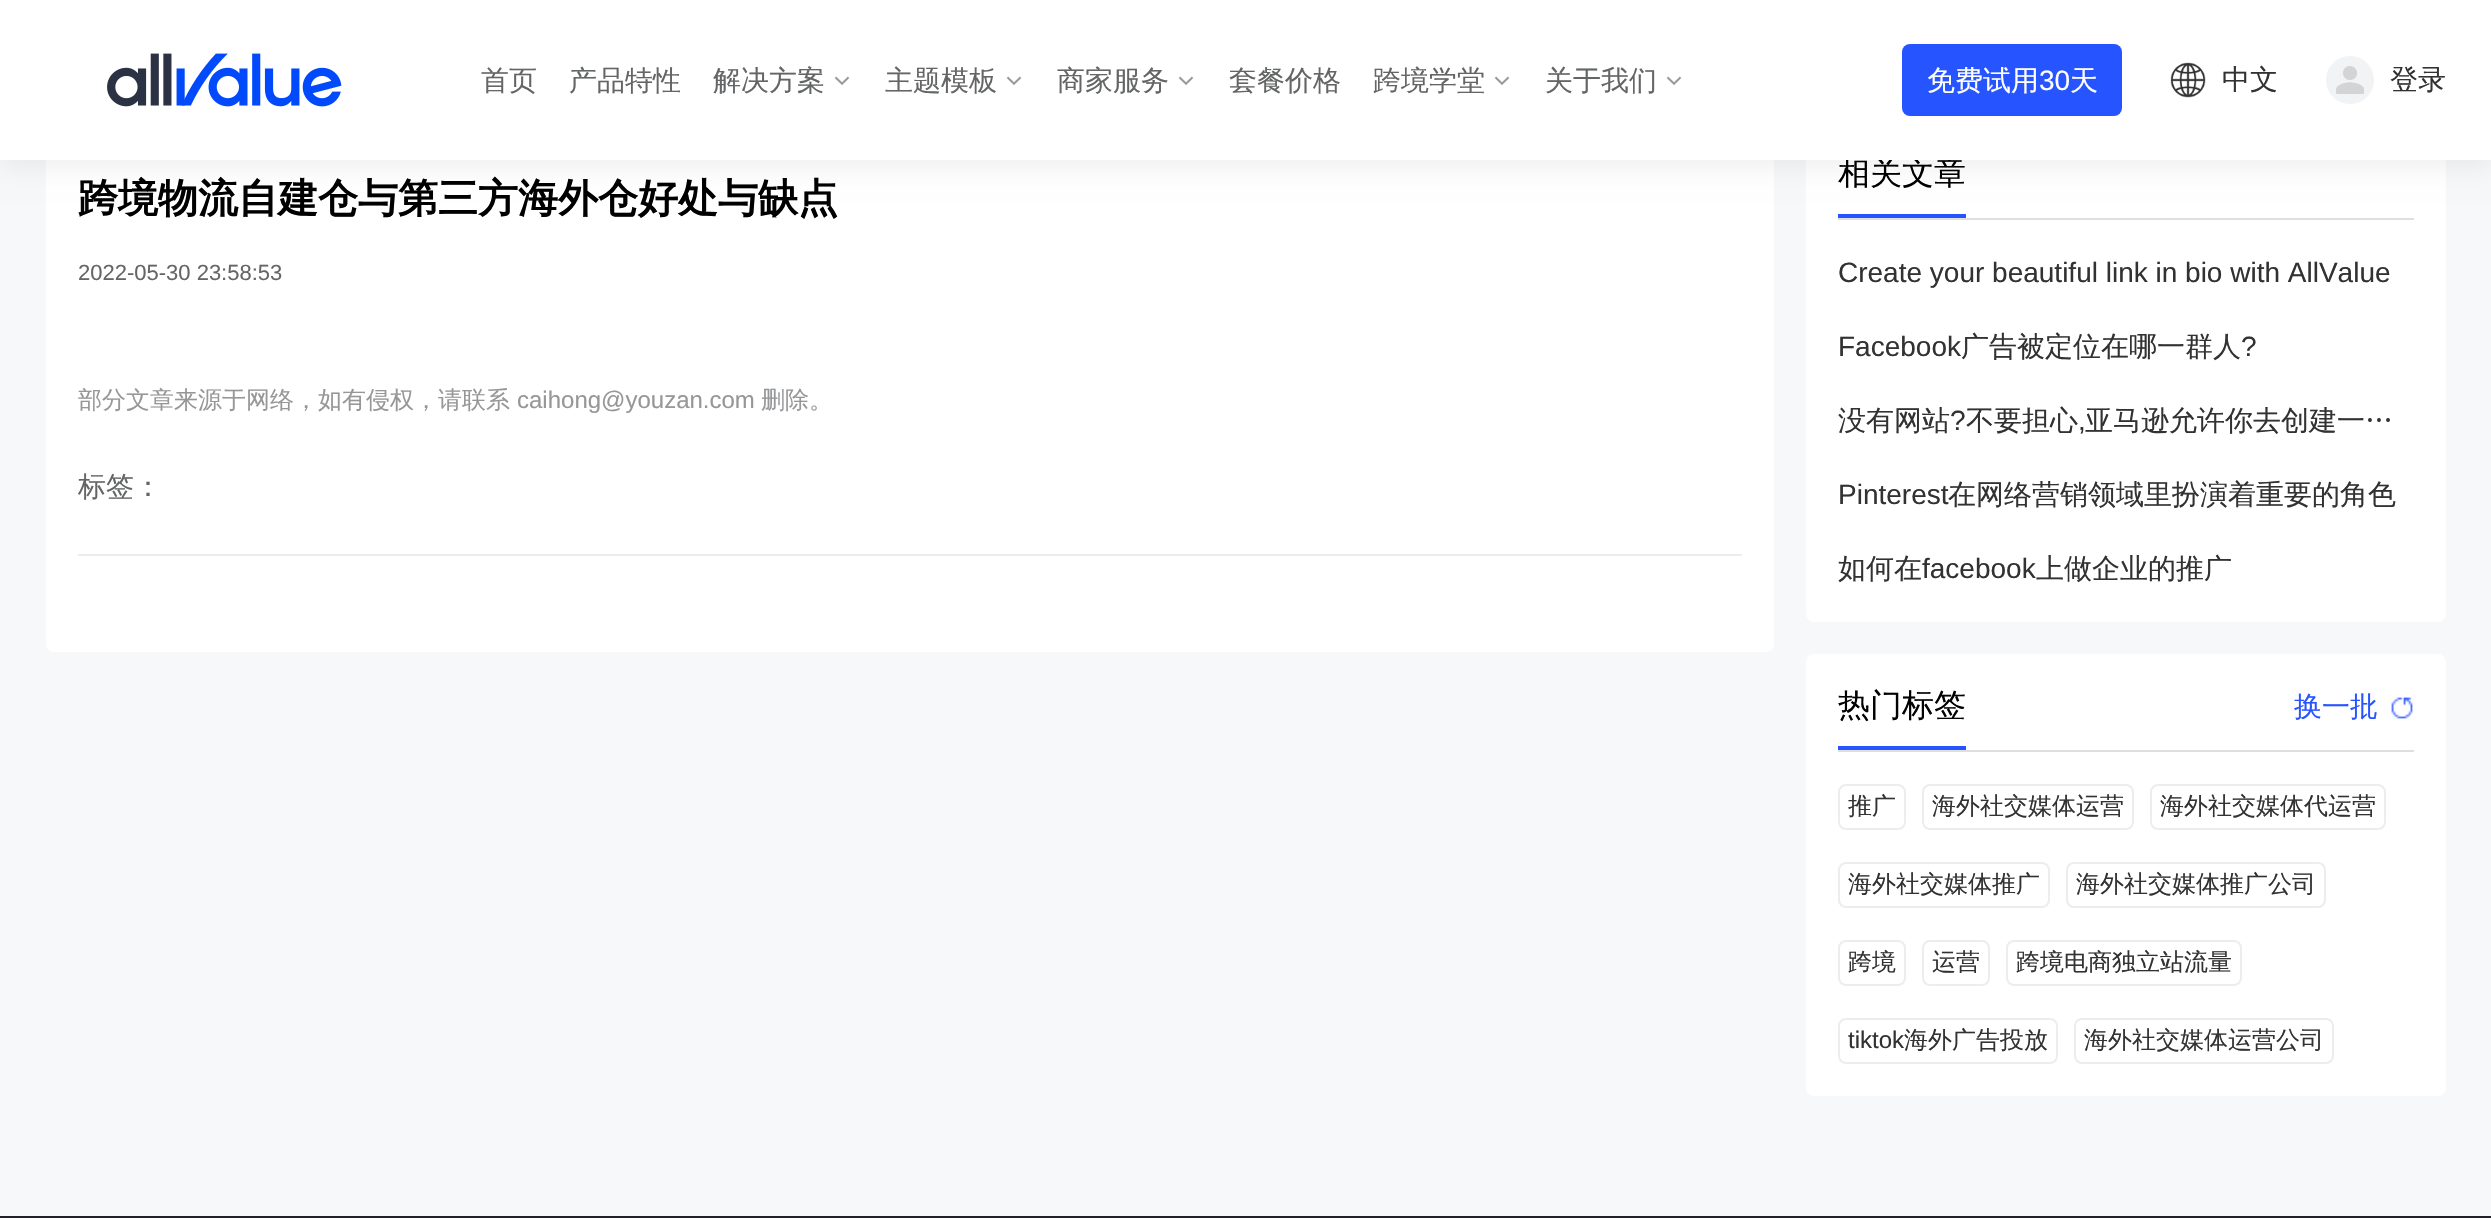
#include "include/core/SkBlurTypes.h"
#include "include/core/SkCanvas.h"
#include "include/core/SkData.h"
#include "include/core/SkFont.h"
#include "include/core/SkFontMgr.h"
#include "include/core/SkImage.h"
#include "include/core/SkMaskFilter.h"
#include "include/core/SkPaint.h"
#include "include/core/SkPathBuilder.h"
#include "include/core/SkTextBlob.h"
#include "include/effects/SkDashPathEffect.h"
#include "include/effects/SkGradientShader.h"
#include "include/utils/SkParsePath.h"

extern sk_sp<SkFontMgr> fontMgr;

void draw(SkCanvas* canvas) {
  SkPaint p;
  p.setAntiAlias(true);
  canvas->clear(SkColorSetRGB(247, 248, 250));
  p.setColor(SK_ColorWHITE);
  canvas->drawPath(SkPathBuilder().moveTo(46, 122).lineTo(1774, 122).lineTo(1774, 644).cubicTo(1774, 648.5f, 1770.5f, 652, 1766, 652).lineTo(54, 652).cubicTo(49.5f, 652, 46, 648.5f, 46, 644).close().detach(), p);
  canvas->drawRoundRect(SkRect::MakeLTRB(1806, 122, 2446, 622), 8, 8, p);
  p.setColor(SkColorSetARGB(15, 0, 0, 0));
  p.setMaskFilter(SkMaskFilter::MakeBlur(kNormal_SkBlurStyle, 12));
  canvas->drawRect(SkRect::MakeLTRB(0, 8, 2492, 168), p);
  p.setMaskFilter(nullptr);
  p.setColor(SkColorSetRGB(235, 237, 240));
  canvas->drawRect(SkRect::MakeLTRB(78, 554, 1742, 556), p);
  p.setColor(SkColorSetRGB(223, 223, 223));
  canvas->drawRect(SkRect::MakeLTRB(1838, 218, 2414, 220), p);
  p.setColor(SkColorSetRGB(38, 84, 255));
  canvas->drawRect(SkRect::MakeLTRB(1838, 214, 1966, 218), p);
  p.setColor(SK_ColorWHITE);
  canvas->drawRoundRect(SkRect::MakeLTRB(1806, 654, 2446, 1096), 8, 8, p);
  p.setColor(SkColorSetRGB(223, 223, 223));
  canvas->drawRect(SkRect::MakeLTRB(1838, 750, 2414, 752), p);
  p.setColor(SkColorSetRGB(38, 84, 255));
  canvas->drawRect(SkRect::MakeLTRB(1838, 746, 1966, 750), p);
  canvas->drawImageRect(SkImages::DeferredFromEncodedData(SkData::MakeFromFileName("images/5.png")), SkRect::MakeLTRB(2391, 697, 2413, 719), SkSamplingOptions());
  p.setStyle(SkPaint::kStroke_Style);
  p.setStrokeWidth(2);
  p.setColor(SkColorSetRGB(235, 237, 240));
  canvas->drawRoundRect(SkRect::MakeLTRB(1839, 785, 1905, 829), 7, 7, p);
  canvas->drawRoundRect(SkRect::MakeLTRB(1923, 785, 2133, 829), 7, 7, p);
  canvas->drawRoundRect(SkRect::MakeLTRB(2151, 785, 2385, 829), 7, 7, p);
  canvas->drawRoundRect(SkRect::MakeLTRB(1839, 863, 2049, 907), 7, 7, p);
  canvas->drawRoundRect(SkRect::MakeLTRB(2067, 863, 2325, 907), 7, 7, p);
  canvas->drawRoundRect(SkRect::MakeLTRB(1839, 941, 1905, 985), 7, 7, p);
  canvas->drawRoundRect(SkRect::MakeLTRB(1923, 941, 1989, 985), 7, 7, p);
  canvas->drawRoundRect(SkRect::MakeLTRB(2007, 941, 2241, 985), 7, 7, p);
  canvas->drawRoundRect(SkRect::MakeLTRB(1839, 1019, 2057, 1063), 7, 7, p);
  canvas->drawRoundRect(SkRect::MakeLTRB(2075, 1019, 2333, 1063), 7, 7, p);
  p.setStyle(SkPaint::kFill_Style);
  p.setColor(SkColorSetRGB(34, 32, 41));
  canvas->drawRect(SkRect::MakeLTRB(0, 1216, 2491, 1218), p);
  SkFont font1(fontMgr->matchFamilyStyle("WenQuanYi Zen Hei", SkFontStyle::Bold()), 40);
  font1.setSubpixel(true);
  p.setColor(SK_ColorBLACK);
  canvas->drawString("跨境物流自建仓与第三方海外仓好处与缺点", 78, 212, font1, p);
  SkFont font2(fontMgr->matchFamilyStyle("Liberation Sans", SkFontStyle::Normal()), 22);
  font2.setSubpixel(true);
  p.setColor(SkColorSetRGB(100, 101, 102));
  canvas->drawString("2022-05-30 23:58:53", 78, 280, font2, p);
  SkFont font3(fontMgr->matchFamilyStyle("WenQuanYi Zen Hei", SkFontStyle(500, SkFontStyle::kNormal_Width, SkFontStyle::kUpright_Slant)), 24);
  font3.setSubpixel(true);
  p.setColor(SkColorSetRGB(150, 151, 153));
  canvas->drawString("部分文章来源于网络，如有侵权，请联系", 78, 408, font3, p);
  SkFont font4(fontMgr->matchFamilyStyle("Liberation Sans", SkFontStyle::Normal()), 24);
  font4.setSubpixel(true);
  canvas->drawString("caihong@youzan.com", 517, 408, font4, p);
  canvas->drawString("删除。", 761, 408, font3, p);
  SkFont font5(fontMgr->matchFamilyStyle("WenQuanYi Zen Hei", SkFontStyle(500, SkFontStyle::kNormal_Width, SkFontStyle::kUpright_Slant)), 28);
  font5.setSubpixel(true);
  p.setColor(SkColorSetRGB(100, 101, 102));
  canvas->drawString("标签：", 78, 496, font5, p);
  SkFont font6(fontMgr->matchFamilyStyle("WenQuanYi Zen Hei", SkFontStyle(500, SkFontStyle::kNormal_Width, SkFontStyle::kUpright_Slant)), 32);
  font6.setSubpixel(true);
  p.setColor(SK_ColorBLACK);
  canvas->drawString("相关文章", 1838, 184, font6, p);
  p.setColor(SK_ColorWHITE);
  canvas->drawRect(SkRect::MakeLTRB(0, 0, 2491, 160), p);
  p.setColor(SkColorSetRGB(50, 50, 51));
  canvas->drawString("中文", 2222, 89, font5, p);
  canvas->drawImageRect(SkImages::DeferredFromEncodedData(SkData::MakeFromFileName("images/2.png")), SkRect::MakeLTRB(1666, 76, 1682, 85), SkSamplingOptions());
  p.setColor(SkColorSetRGB(100, 101, 102));
  canvas->drawString("关于我们", 1545, 90, font5, p);
  canvas->drawImageRect(SkImages::DeferredFromEncodedData(SkData::MakeFromFileName("images/2.png")), SkRect::MakeLTRB(1494, 76, 1510, 85), SkSamplingOptions());
  canvas->drawString("跨境学堂", 1373, 90, font5, p);
  canvas->drawString("套餐价格", 1229, 90, font5, p);
  canvas->drawImageRect(SkImages::DeferredFromEncodedData(SkData::MakeFromFileName("images/2.png")), SkRect::MakeLTRB(1178, 76, 1194, 85), SkSamplingOptions());
  canvas->drawString("商家服务", 1057, 90, font5, p);
  canvas->drawImageRect(SkImages::DeferredFromEncodedData(SkData::MakeFromFileName("images/2.png")), SkRect::MakeLTRB(1006, 76, 1022, 85), SkSamplingOptions());
  canvas->drawString("主题模板", 885, 90, font5, p);
  canvas->drawImageRect(SkImages::DeferredFromEncodedData(SkData::MakeFromFileName("images/2.png")), SkRect::MakeLTRB(834, 76, 850, 85), SkSamplingOptions());
  canvas->drawString("解决方案", 713, 90, font5, p);
  canvas->drawString("产品特性", 569, 90, font5, p);
  canvas->drawString("首页", 481, 90, font5, p);
  p.setColor(SkColorSetRGB(242, 243, 245));
  canvas->drawCircle(2350, 80, 24, p);
  canvas->drawImageRect(SkImages::DeferredFromEncodedData(SkData::MakeFromFileName("images/4.png")), SkRect::MakeLTRB(2336, 66, 2364, 94), SkSamplingOptions());
  canvas->drawImageRect(SkImages::DeferredFromEncodedData(SkData::MakeFromFileName("images/1.png")), SkRect::MakeLTRB(107, 53, 342, 107), SkSamplingOptions());
  p.setColor(SkColorSetRGB(50, 50, 51));
  canvas->drawString("登录", 2390, 89, font5, p);
  canvas->drawImageRect(SkImages::DeferredFromEncodedData(SkData::MakeFromFileName("images/3.png")), SkRect::MakeLTRB(2170, 62, 2206, 98), SkSamplingOptions());
  p.setColor(SkColorSetRGB(38, 84, 255));
  canvas->drawRoundRect(SkRect::MakeLTRB(1902, 44, 2122, 116), 8, 8, p);
  p.setColor(SK_ColorWHITE);
  canvas->drawString("天", 2070, 90, font5, p);
  SkFont font7(fontMgr->matchFamilyStyle("Liberation Sans", SkFontStyle::Normal()), 28);
  font7.setSubpixel(true);
  canvas->drawString("30", 2039, 90, font7, p);
  canvas->drawString("免费试用", 1927, 90, font5, p);
  p.setColor(SkColorSetRGB(50, 50, 51));
  canvas->drawString("Create your beautiful link in bio with AllValue", 1838, 282, font7, p);
  canvas->drawString("Facebook", 1838, 356, font7, p);
  canvas->drawString("广告被定位在哪一群人", 1961, 356, font5, p);
  canvas->drawString("?", 2241, 356, font7, p);
  canvas->drawString("没有网站", 1838, 430, font5, p);
  canvas->drawString("?", 1950, 430, font7, p);
  canvas->drawString("不要担心", 1966, 430, font5, p);
  canvas->drawString(",", 2078, 430, font7, p);
  canvas->drawString("亚马逊允许你去创建一…", 2085, 430, font5, p);
  canvas->drawString("Pinterest", 1838, 504, font7, p);
  canvas->drawString("在网络营销领域里扮演着重要的角色", 1948, 504, font5, p);
  canvas->drawString("如何在", 1838, 578, font5, p);
  canvas->drawString("facebook", 1922, 578, font7, p);
  canvas->drawString("上做企业的推广", 2036, 578, font5, p);
  p.setColor(SK_ColorBLACK);
  canvas->drawString("热门标签", 1838, 716, font6, p);
  p.setColor(SkColorSetRGB(38, 84, 255));
  canvas->drawString("换一批", 2294, 716, font5, p);
  p.setColor(SkColorSetRGB(50, 50, 51));
  canvas->drawString("推广", 1848, 814, font3, p);
  canvas->drawString("海外社交媒体运营", 1932, 814, font3, p);
  canvas->drawString("海外社交媒体代运营", 2160, 814, font3, p);
  canvas->drawString("海外社交媒体推广", 1848, 892, font3, p);
  canvas->drawString("海外社交媒体推广公司", 2076, 892, font3, p);
  canvas->drawString("跨境", 1848, 970, font3, p);
  canvas->drawString("运营", 1932, 970, font3, p);
  canvas->drawString("跨境电商独立站流量", 2016, 970, font3, p);
  canvas->drawString("tiktok", 1848, 1048, font4, p);
  canvas->drawString("海外广告投放", 1904, 1048, font3, p);
  canvas->drawString("海外社交媒体运营公司", 2084, 1048, font3, p);
}
